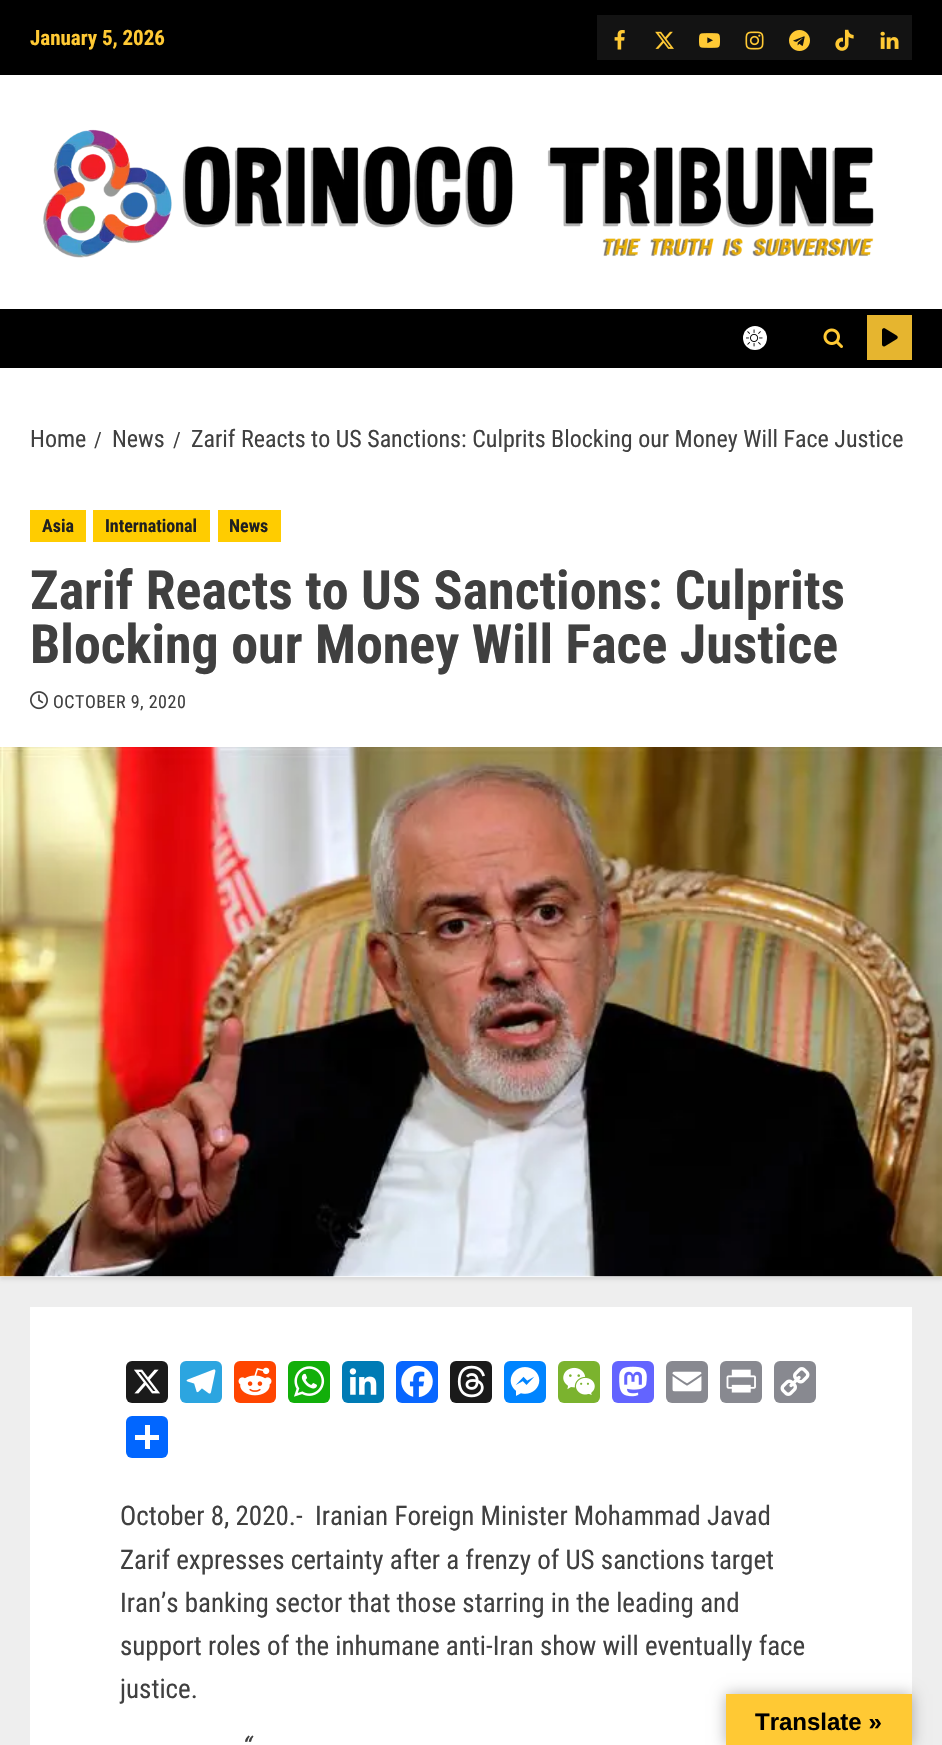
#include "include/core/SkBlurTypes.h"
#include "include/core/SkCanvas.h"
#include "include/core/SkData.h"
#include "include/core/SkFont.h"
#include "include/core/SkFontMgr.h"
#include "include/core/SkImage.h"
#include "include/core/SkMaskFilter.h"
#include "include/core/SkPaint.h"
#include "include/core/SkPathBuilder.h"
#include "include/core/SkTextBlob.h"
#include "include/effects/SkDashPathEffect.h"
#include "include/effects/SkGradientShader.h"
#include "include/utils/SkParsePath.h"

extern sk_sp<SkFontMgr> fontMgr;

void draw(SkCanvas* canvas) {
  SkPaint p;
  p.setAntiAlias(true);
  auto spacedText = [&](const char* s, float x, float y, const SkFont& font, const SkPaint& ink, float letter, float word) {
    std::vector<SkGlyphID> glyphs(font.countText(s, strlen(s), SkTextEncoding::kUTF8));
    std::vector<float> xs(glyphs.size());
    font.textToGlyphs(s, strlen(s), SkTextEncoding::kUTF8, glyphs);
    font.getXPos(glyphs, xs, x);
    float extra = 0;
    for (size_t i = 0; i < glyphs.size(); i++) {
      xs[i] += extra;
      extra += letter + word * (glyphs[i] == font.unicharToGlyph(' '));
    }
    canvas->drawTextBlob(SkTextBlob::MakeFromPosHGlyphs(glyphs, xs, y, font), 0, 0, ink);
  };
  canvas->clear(SkColorSetRGB(238, 238, 238));
  p.setColor(SK_ColorBLACK);
  canvas->drawRect(SkRect::MakeLTRB(0, 0, 942, 75), p);
  p.setColor(SkColorSetRGB(19, 19, 19));
  canvas->drawRect(SkRect::MakeLTRB(597, 15, 912, 60), p);
  canvas->drawImageRect(SkImages::DeferredFromEncodedData(SkData::MakeFromFileName("images/1.png")), SkRect::MakeLTRB(614, 30, 625, 50), SkSamplingOptions());
  canvas->drawImageRect(SkImages::DeferredFromEncodedData(SkData::MakeFromFileName("images/2.png")), SkRect::MakeLTRB(655, 31, 674, 49), SkSamplingOptions());
  canvas->drawImageRect(SkImages::DeferredFromEncodedData(SkData::MakeFromFileName("images/3.png")), SkRect::MakeLTRB(699, 33, 720, 48), SkSamplingOptions());
  canvas->drawImageRect(SkImages::DeferredFromEncodedData(SkData::MakeFromFileName("images/4.png")), SkRect::MakeLTRB(745, 31, 764, 50), SkSamplingOptions());
  canvas->drawImageRect(SkImages::DeferredFromEncodedData(SkData::MakeFromFileName("images/5.png")), SkRect::MakeLTRB(789, 30, 810, 51), SkSamplingOptions());
  canvas->drawImageRect(SkImages::DeferredFromEncodedData(SkData::MakeFromFileName("images/6.png")), SkRect::MakeLTRB(835, 29, 854, 51), SkSamplingOptions());
  canvas->drawImageRect(SkImages::DeferredFromEncodedData(SkData::MakeFromFileName("images/7.png")), SkRect::MakeLTRB(880, 31, 899, 49), SkSamplingOptions());
  p.setColor(SK_ColorWHITE);
  canvas->drawRect(SkRect::MakeLTRB(0, 75, 942, 309), p);
  canvas->drawImageRect(SkImages::DeferredFromEncodedData(SkData::MakeFromFileName("images/8.png")), SkRect::MakeLTRB(43, 129, 874, 258), SkSamplingOptions());
  p.setColor(SK_ColorBLACK);
  canvas->drawRect(SkRect::MakeLTRB(0, 309, 942, 368), p);
  p.setColor(SK_ColorWHITE);
  canvas->drawCircle(755, 338, 12, p);
  canvas->drawImageRect(SkImages::DeferredFromEncodedData(SkData::MakeFromFileName("images/9.png")), SkRect::MakeLTRB(746, 329, 763, 347), SkSamplingOptions());
  canvas->drawImageRect(SkImages::DeferredFromEncodedData(SkData::MakeFromFileName("images/10.png")), SkRect::MakeLTRB(823, 328, 843, 348), SkSamplingOptions());
  p.setColor(SkColorSetRGB(230, 181, 47));
  canvas->drawRect(SkRect::MakeLTRB(867, 315, 912, 360), p);
  canvas->drawImageRect(SkImages::DeferredFromEncodedData(SkData::MakeFromFileName("images/11.png")), SkRect::MakeLTRB(882, 328, 898, 347), SkSamplingOptions());
  p.setColor(SkColorSetARGB(20, 0, 0, 0));
  p.setMaskFilter(SkMaskFilter::MakeBlur(kNormal_SkBlurStyle, 1.5f));
  canvas->drawRect(SkRect::MakeLTRB(0, 371, 942, 1280), p);
  p.setMaskFilter(nullptr);
  p.setColor(SK_ColorWHITE);
  canvas->drawRect(SkRect::MakeLTRB(0, 368, 942, 1277), p);
  p.setColor(SkColorSetRGB(255, 204, 0));
  canvas->drawRect(SkRect::MakeLTRB(30, 510, 86, 542), p);
  canvas->drawRect(SkRect::MakeLTRB(93, 510, 210, 542), p);
  canvas->drawRect(SkRect::MakeLTRB(218, 510, 281, 542), p);
  canvas->drawImageRect(SkImages::DeferredFromEncodedData(SkData::MakeFromFileName("images/12.png")), SkRect::MakeLTRB(30, 691, 48, 710), SkSamplingOptions());
  canvas->drawImageRect(SkImages::DeferredFromEncodedData(SkData::MakeFromFileName("images/13.png")), SkRect::MakeLTRB(0, 747, 942, 1277), SkSamplingOptions());
  p.setColor(SK_ColorWHITE);
  canvas->drawRect(SkRect::MakeLTRB(30, 1307, 912, 1745), p);
  p.setColor(SkColorSetRGB(26, 26, 26));
  canvas->drawRoundRect(SkRect::MakeLTRB(126, 1361, 168, 1403), 6, 6, p);
  canvas->drawImageRect(SkImages::DeferredFromEncodedData(SkData::MakeFromFileName("images/14.png")), SkRect::MakeLTRB(134, 1369, 160, 1394), SkSamplingOptions());
  p.setColor(SkColorSetRGB(44, 165, 224));
  canvas->drawRoundRect(SkRect::MakeLTRB(180, 1361, 222, 1403), 6, 6, p);
  canvas->drawImageRect(SkImages::DeferredFromEncodedData(SkData::MakeFromFileName("images/15.png")), SkRect::MakeLTRB(186, 1369, 216, 1394), SkSamplingOptions());
  p.setColor(SkColorSetRGB(255, 69, 0));
  canvas->drawRoundRect(SkRect::MakeLTRB(234, 1361, 276, 1403), 6, 6, p);
  canvas->drawImageRect(SkImages::DeferredFromEncodedData(SkData::MakeFromFileName("images/16.png")), SkRect::MakeLTRB(238, 1367, 272, 1396), SkSamplingOptions());
  p.setColor(SkColorSetRGB(18, 175, 10));
  canvas->drawRoundRect(SkRect::MakeLTRB(288, 1361, 330, 1403), 6, 6, p);
  canvas->drawImageRect(SkImages::DeferredFromEncodedData(SkData::MakeFromFileName("images/17.png")), SkRect::MakeLTRB(294, 1366, 325, 1397), SkSamplingOptions());
  p.setColor(SkColorSetRGB(0, 123, 181));
  canvas->drawRoundRect(SkRect::MakeLTRB(342, 1361, 384, 1403), 6, 6, p);
  canvas->drawImageRect(SkImages::DeferredFromEncodedData(SkData::MakeFromFileName("images/18.png")), SkRect::MakeLTRB(349, 1368, 377, 1395), SkSamplingOptions());
  p.setColor(SkColorSetRGB(8, 102, 255));
  canvas->drawRoundRect(SkRect::MakeLTRB(396, 1361, 438, 1403), 6, 6, p);
  canvas->drawImageRect(SkImages::DeferredFromEncodedData(SkData::MakeFromFileName("images/19.png")), SkRect::MakeLTRB(401, 1365, 433, 1398), SkSamplingOptions());
  p.setColor(SkColorSetRGB(26, 26, 26));
  canvas->drawRoundRect(SkRect::MakeLTRB(450, 1361, 492, 1403), 6, 6, p);
  canvas->drawImageRect(SkImages::DeferredFromEncodedData(SkData::MakeFromFileName("images/20.png")), SkRect::MakeLTRB(457, 1365, 485, 1398), SkSamplingOptions());
  p.setColor(SkColorSetRGB(0, 132, 255));
  canvas->drawRoundRect(SkRect::MakeLTRB(504, 1361, 546, 1403), 6, 6, p);
  canvas->drawImageRect(SkImages::DeferredFromEncodedData(SkData::MakeFromFileName("images/21.png")), SkRect::MakeLTRB(510, 1367, 540, 1396), SkSamplingOptions());
  p.setColor(SkColorSetRGB(123, 179, 46));
  canvas->drawRoundRect(SkRect::MakeLTRB(558, 1361, 600, 1403), 6, 6, p);
  canvas->drawImageRect(SkImages::DeferredFromEncodedData(SkData::MakeFromFileName("images/22.png")), SkRect::MakeLTRB(563, 1367, 595, 1395), SkSamplingOptions());
  p.setColor(SkColorSetRGB(99, 100, 255));
  canvas->drawRoundRect(SkRect::MakeLTRB(612, 1361, 654, 1403), 6, 6, p);
  canvas->drawImageRect(SkImages::DeferredFromEncodedData(SkData::MakeFromFileName("images/23.png")), SkRect::MakeLTRB(619, 1366, 647, 1397), SkSamplingOptions());
  p.setColor(SkColorSetRGB(136, 137, 144));
  canvas->drawRoundRect(SkRect::MakeLTRB(666, 1361, 708, 1403), 6, 6, p);
  canvas->drawImageRect(SkImages::DeferredFromEncodedData(SkData::MakeFromFileName("images/24.png")), SkRect::MakeLTRB(672, 1371, 702, 1392), SkSamplingOptions());
  canvas->drawRoundRect(SkRect::MakeLTRB(720, 1361, 762, 1403), 6, 6, p);
  canvas->drawImageRect(SkImages::DeferredFromEncodedData(SkData::MakeFromFileName("images/25.png")), SkRect::MakeLTRB(726, 1369, 756, 1393), SkSamplingOptions());
  canvas->drawRoundRect(SkRect::MakeLTRB(774, 1361, 816, 1403), 6, 6, p);
  canvas->drawImageRect(SkImages::DeferredFromEncodedData(SkData::MakeFromFileName("images/26.png")), SkRect::MakeLTRB(780, 1367, 810, 1396), SkSamplingOptions());
  p.setColor(SkColorSetRGB(1, 102, 255));
  canvas->drawRoundRect(SkRect::MakeLTRB(126, 1416, 168, 1458), 6, 6, p);
  p.setColor(SK_ColorWHITE);
  canvas->drawRect(SkRect::MakeLTRB(145, 1425, 150, 1449), p);
  canvas->drawRect(SkRect::MakeLTRB(135, 1435, 159, 1440), p);
  p.setColor(SkColorSetARGB(77, 0, 0, 0));
  p.setMaskFilter(SkMaskFilter::MakeBlur(kNormal_SkBlurStyle, 7));
  canvas->drawRect(SkRect::MakeLTRB(726, 1694, 912, 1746), p);
  p.setMaskFilter(nullptr);
  p.setColor(SkColorSetRGB(255, 201, 52));
  canvas->drawRect(SkRect::MakeLTRB(726, 1694, 912, 1745), p);
  SkFont font1(fontMgr->matchFamilyStyle("Roboto Condensed", SkFontStyle::Bold()), 21);
  font1.setSubpixel(true);
  canvas->drawString("January 5, 2026", 30, 45, font1, p);
  SkFont font2(fontMgr->matchFamilyStyle("Roboto Condensed", SkFontStyle::Normal()), 24);
  font2.setSubpixel(true);
  p.setColor(SkColorSetRGB(64, 64, 64));
  canvas->drawString("Home", 30, 447, font2, p);
  SkFont font3(fontMgr->matchFamilyStyle("Roboto Condensed", SkFontStyle::Normal()), 21);
  font3.setSubpixel(true);
  canvas->drawString("/", 94, 447, font3, p);
  canvas->drawString("News", 112, 447, font2, p);
  canvas->drawString("/", 173, 447, font3, p);
  canvas->drawString("Zarif Reacts to US Sanctions: Culprits Blocking our Money Will Face Justice", 191, 447, font2, p);
  SkFont font4(fontMgr->matchFamilyStyle("Roboto Condensed", SkFontStyle::Bold()), 18);
  font4.setSubpixel(true);
  p.setColor(SkColorSetRGB(32, 32, 32));
  canvas->drawString("Asia", 42, 532, font4, p);
  canvas->drawString("International", 105, 532, font4, p);
  canvas->drawString("News", 229, 532, font4, p);
  SkFont font5(fontMgr->matchFamilyStyle("Roboto Condensed", SkFontStyle::Bold()), 54);
  font5.setSubpixel(true);
  p.setColor(SkColorSetRGB(64, 64, 64));
  canvas->drawString("Zarif Reacts to US Sanctions: Culprits", 30, 609, font5, p);
  canvas->drawString("Blocking our Money Will Face Justice", 30, 663, font5, p);
  SkFont font6(fontMgr->matchFamilyStyle("Roboto Condensed", SkFontStyle::Normal()), 18);
  font6.setSubpixel(true);
  spacedText("OCTOBER 9, 2020", 53, 708, font6, p, 0.5f, 0);
  SkFont font7(fontMgr->matchFamilyStyle("Roboto Condensed", SkFontStyle::Normal()), 27);
  font7.setSubpixel(true);
  canvas->drawString("October 8, 2020.-  Iranian Foreign Minister Mohammad Javad", 120, 1525, font7, p);
  canvas->drawString("Zarif expresses certainty after a frenzy of US sanctions target", 120, 1569, font7, p);
  canvas->drawString("Iran’s banking sector that those starring in the leading and", 120, 1612, font7, p);
  canvas->drawString("support roles of the inhumane anti-Iran show will eventually face", 120, 1655, font7, p);
  canvas->drawString("justice.", 120, 1698, font7, p);
  SkFont font8(fontMgr->matchFamilyStyle("Roboto Condensed", SkFontStyle::Italic()), 27);
  font8.setSubpixel(true);
  canvas->drawString("“", 240, 1756, font8, p);
  SkFont font9(fontMgr->matchFamilyStyle("Liberation Sans", SkFontStyle::Bold()), 24);
  font9.setSubpixel(true);
  p.setColor(SK_ColorBLACK);
  canvas->drawString("Translate »", 755, 1730, font9, p);
}
